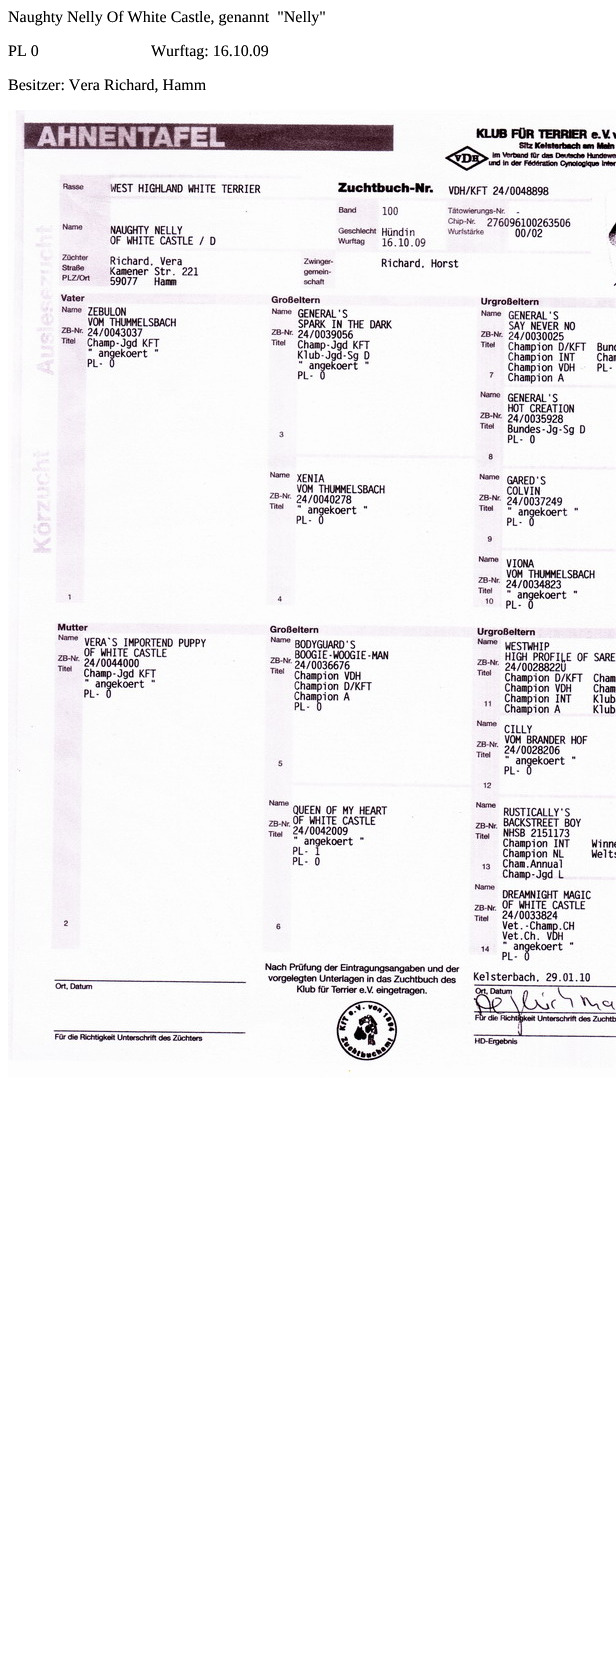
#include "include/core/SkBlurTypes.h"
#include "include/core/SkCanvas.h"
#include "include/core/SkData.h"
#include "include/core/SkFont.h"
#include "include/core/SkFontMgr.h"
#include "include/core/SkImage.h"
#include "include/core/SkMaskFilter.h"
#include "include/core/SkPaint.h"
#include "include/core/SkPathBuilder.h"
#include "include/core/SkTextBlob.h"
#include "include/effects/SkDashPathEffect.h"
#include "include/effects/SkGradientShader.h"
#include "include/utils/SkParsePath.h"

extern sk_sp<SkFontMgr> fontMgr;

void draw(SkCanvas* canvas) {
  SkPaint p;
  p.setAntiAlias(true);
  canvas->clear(SK_ColorWHITE);
  canvas->drawImageRect(SkImages::DeferredFromEncodedData(SkData::MakeFromFileName("images/1.png")), SkRect::MakeLTRB(8, 110, 616, 1078), SkSamplingOptions());
  SkFont font1(fontMgr->matchFamilyStyle("Liberation Serif", SkFontStyle::Normal()), 16);
  font1.setSubpixel(true);
  p.setColor(SK_ColorBLACK);
  canvas->drawString("Naughty Nelly Of White Castle, genannt  \"Nelly\"", 8, 22, font1, p);
  canvas->drawString("PL 0", 8, 56, font1, p);
  canvas->drawString("Wurftag: 16.10.09", 151, 56, font1, p);
  canvas->drawString("Besitzer: Vera Richard, Hamm", 8, 90, font1, p);
}
